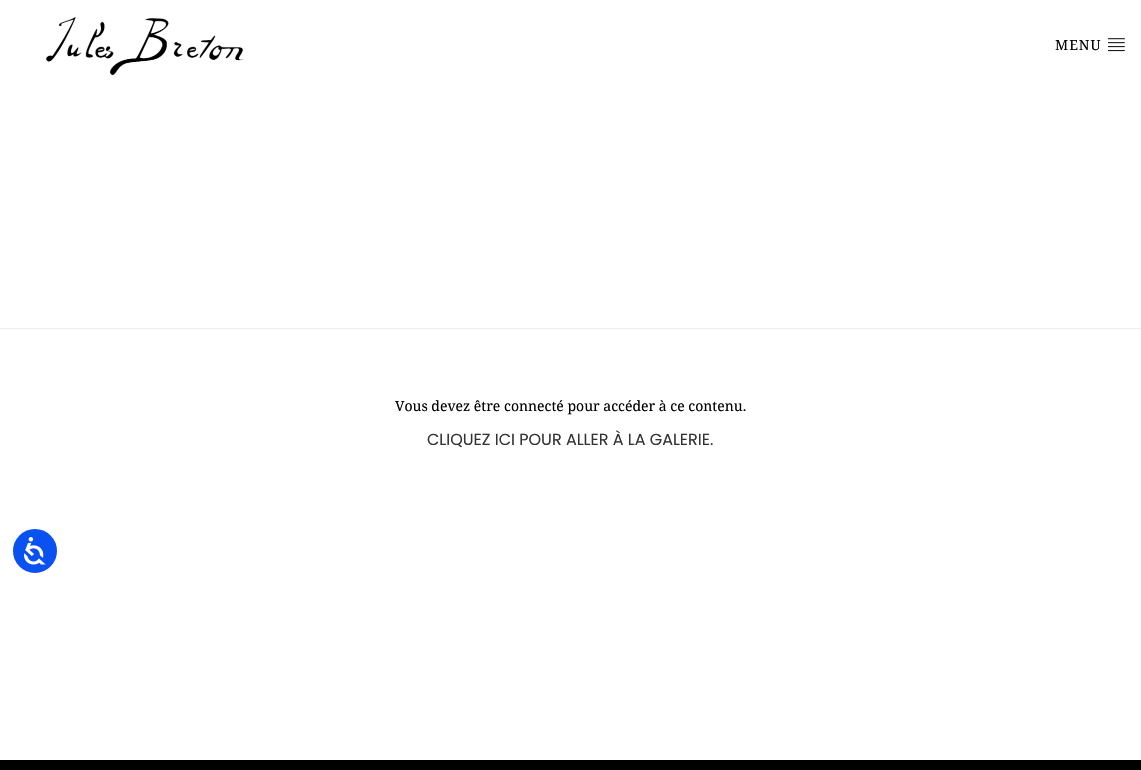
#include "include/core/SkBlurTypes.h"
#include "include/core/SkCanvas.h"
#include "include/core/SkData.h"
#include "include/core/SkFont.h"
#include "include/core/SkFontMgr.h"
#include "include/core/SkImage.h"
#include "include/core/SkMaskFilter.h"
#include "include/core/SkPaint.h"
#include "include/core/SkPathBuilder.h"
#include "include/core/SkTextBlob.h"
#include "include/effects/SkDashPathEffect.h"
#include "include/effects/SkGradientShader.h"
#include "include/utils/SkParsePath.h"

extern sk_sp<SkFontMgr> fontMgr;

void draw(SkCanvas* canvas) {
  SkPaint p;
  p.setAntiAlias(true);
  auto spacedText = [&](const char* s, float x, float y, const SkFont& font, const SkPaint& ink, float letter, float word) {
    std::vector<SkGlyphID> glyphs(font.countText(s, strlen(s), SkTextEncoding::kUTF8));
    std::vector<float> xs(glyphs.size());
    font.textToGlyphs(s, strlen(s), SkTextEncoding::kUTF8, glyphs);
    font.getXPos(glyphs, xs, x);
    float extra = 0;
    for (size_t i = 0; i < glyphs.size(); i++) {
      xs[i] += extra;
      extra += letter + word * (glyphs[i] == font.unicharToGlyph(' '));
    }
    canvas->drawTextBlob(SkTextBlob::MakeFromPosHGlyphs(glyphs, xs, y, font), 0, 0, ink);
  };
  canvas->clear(SK_ColorWHITE);
  canvas->drawImageRect(SkImages::DeferredFromEncodedData(SkData::MakeFromFileName("images/1.png")), SkRect::MakeLTRB(46, 16, 244, 76), SkSamplingOptions());
  canvas->drawImageRect(SkImages::DeferredFromEncodedData(SkData::MakeFromFileName("images/2.png")), SkRect::MakeLTRB(1108, 38, 1125, 52), SkSamplingOptions());
  p.setColor(SkColorSetRGB(236, 236, 236));
  canvas->drawRect(SkRect::MakeLTRB(0, 328, 1141, 329), p);
  p.setColor(SkColorSetRGB(10, 81, 242));
  canvas->drawCircle(35, 551, 23.5f, p);
  p.setStyle(SkPaint::kStroke_Style);
  p.setStrokeWidth(3);
  p.setColor(SK_ColorWHITE);
  canvas->drawCircle(35, 551, 23.5f, p);
  canvas->drawImageRect(SkImages::DeferredFromEncodedData(SkData::MakeFromFileName("images/3.png")), SkRect::MakeLTRB(23, 537, 46, 565), SkSamplingOptions());
  p.setStyle(SkPaint::kFill_Style);
  p.setColor(SkColorSetRGB(1, 1, 0));
  canvas->drawRect(SkRect::MakeLTRB(0, 760, 1141, 770), p);
  SkFont font1(fontMgr->matchFamilyStyle("Droid Serif", SkFontStyle::Normal()), 14);
  font1.setSubpixel(true);
  p.setColor(SK_ColorBLACK);
  spacedText("MENU", 1055, 50, font1, p, 1, 0);
  canvas->drawString("Vous devez être connecté pour accéder à ce contenu.", 395, 411, font1, p);
  SkFont font2(fontMgr->matchFamilyStyle("Poppins", SkFontStyle::Normal()), 16);
  font2.setSubpixel(true);
  p.setColor(SkColorSetRGB(51, 51, 51));
  canvas->drawString("CLIQUEZ ICI POUR ALLER À LA GALERIE.", 427, 445, font2, p);
}
